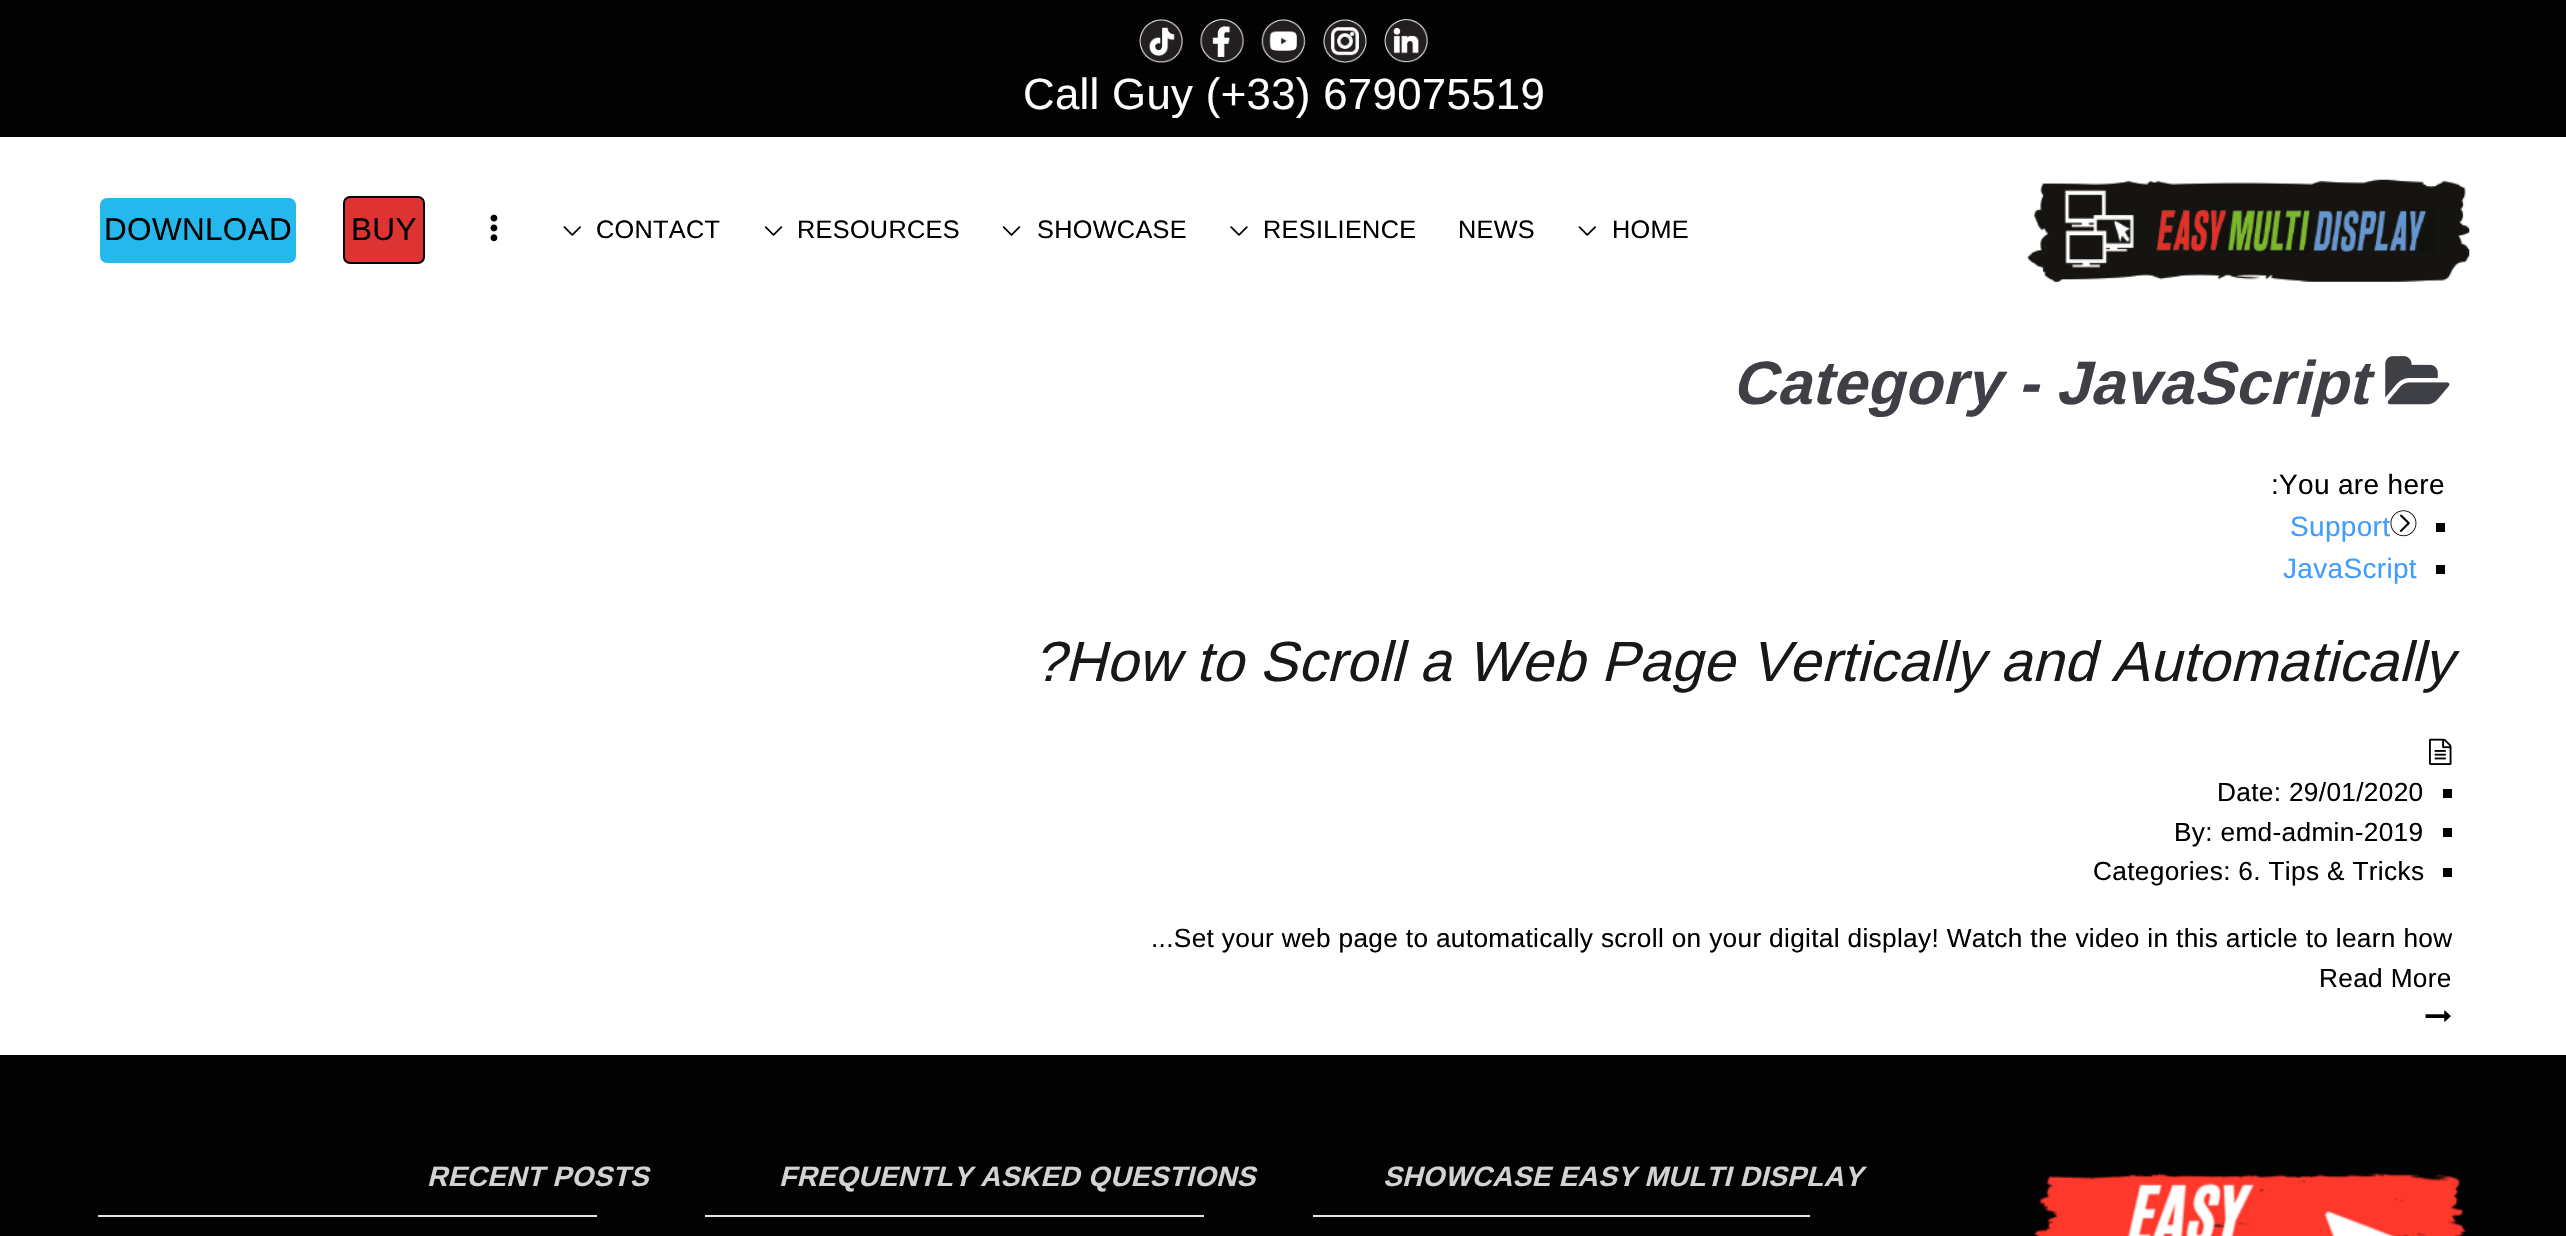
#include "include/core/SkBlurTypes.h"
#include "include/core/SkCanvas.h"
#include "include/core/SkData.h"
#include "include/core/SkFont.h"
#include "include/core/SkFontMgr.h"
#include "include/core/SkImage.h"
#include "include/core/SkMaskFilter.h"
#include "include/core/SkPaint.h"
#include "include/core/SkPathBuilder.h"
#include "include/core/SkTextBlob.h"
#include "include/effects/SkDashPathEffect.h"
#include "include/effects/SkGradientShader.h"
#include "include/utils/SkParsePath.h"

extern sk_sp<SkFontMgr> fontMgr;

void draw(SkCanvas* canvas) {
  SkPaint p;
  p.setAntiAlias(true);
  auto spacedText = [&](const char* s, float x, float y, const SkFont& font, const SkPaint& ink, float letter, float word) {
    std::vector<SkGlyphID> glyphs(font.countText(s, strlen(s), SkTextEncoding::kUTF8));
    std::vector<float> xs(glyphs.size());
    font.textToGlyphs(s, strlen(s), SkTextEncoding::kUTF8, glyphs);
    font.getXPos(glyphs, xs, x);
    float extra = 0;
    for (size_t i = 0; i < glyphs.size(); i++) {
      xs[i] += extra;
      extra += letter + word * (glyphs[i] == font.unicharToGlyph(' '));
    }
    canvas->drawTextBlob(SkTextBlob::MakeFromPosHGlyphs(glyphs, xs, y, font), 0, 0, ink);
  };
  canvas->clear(SkColorSetRGB(2, 2, 2));
  canvas->drawImageRect(SkImages::DeferredFromEncodedData(SkData::MakeFromFileName("images/1.png")), SkRect::MakeLTRB(1139, 19, 1183, 63), SkSamplingOptions());
  canvas->drawImageRect(SkImages::DeferredFromEncodedData(SkData::MakeFromFileName("images/2.png")), SkRect::MakeLTRB(1200, 19, 1245, 63), SkSamplingOptions());
  canvas->drawImageRect(SkImages::DeferredFromEncodedData(SkData::MakeFromFileName("images/3.png")), SkRect::MakeLTRB(1261, 19, 1306, 63), SkSamplingOptions());
  canvas->drawImageRect(SkImages::DeferredFromEncodedData(SkData::MakeFromFileName("images/4.png")), SkRect::MakeLTRB(1323, 19, 1367, 63), SkSamplingOptions());
  canvas->drawImageRect(SkImages::DeferredFromEncodedData(SkData::MakeFromFileName("images/5.png")), SkRect::MakeLTRB(1384, 19, 1428, 63), SkSamplingOptions());
  p.setColor(SK_ColorWHITE);
  canvas->drawRect(SkRect::MakeLTRB(0, 137, 2566, 1055), p);
  p.setColor(SkColorSetRGB(37, 184, 237));
  canvas->drawRoundRect(SkRect::MakeLTRB(100, 198, 296, 263), 7, 7, p);
  p.setColor(SkColorSetRGB(221, 51, 51));
  canvas->drawRoundRect(SkRect::MakeLTRB(344, 197, 424, 263), 6, 6, p);
  p.setStyle(SkPaint::kStroke_Style);
  p.setStrokeWidth(2);
  p.setColor(SK_ColorBLACK);
  canvas->drawRoundRect(SkRect::MakeLTRB(344, 197, 424, 263), 6, 6, p);
  canvas->drawImageRect(SkImages::DeferredFromEncodedData(SkData::MakeFromFileName("images/6.png")), SkRect::MakeLTRB(490, 214, 498, 242), SkSamplingOptions());
  canvas->drawImageRect(SkImages::DeferredFromEncodedData(SkData::MakeFromFileName("images/7.png")), SkRect::MakeLTRB(563, 226, 581, 236), SkSamplingOptions());
  canvas->drawImageRect(SkImages::DeferredFromEncodedData(SkData::MakeFromFileName("images/8.png")), SkRect::MakeLTRB(764, 226, 783, 236), SkSamplingOptions());
  canvas->drawImageRect(SkImages::DeferredFromEncodedData(SkData::MakeFromFileName("images/8.png")), SkRect::MakeLTRB(1002, 226, 1021, 236), SkSamplingOptions());
  canvas->drawImageRect(SkImages::DeferredFromEncodedData(SkData::MakeFromFileName("images/9.png")), SkRect::MakeLTRB(1230, 226, 1248, 236), SkSamplingOptions());
  canvas->drawImageRect(SkImages::DeferredFromEncodedData(SkData::MakeFromFileName("images/7.png")), SkRect::MakeLTRB(1578, 226, 1596, 236), SkSamplingOptions());
  canvas->drawImageRect(SkImages::DeferredFromEncodedData(SkData::MakeFromFileName("images/10.png")), SkRect::MakeLTRB(2027, 179, 2470, 282), SkSamplingOptions());
  canvas->drawImageRect(SkImages::DeferredFromEncodedData(SkData::MakeFromFileName("images/11.png")), SkRect::MakeLTRB(2385, 356, 2450, 405), SkSamplingOptions());
  canvas->drawImageRect(SkImages::DeferredFromEncodedData(SkData::MakeFromFileName("images/12.png")), SkRect::MakeLTRB(2390, 510, 2417, 537), SkSamplingOptions());
  p.setStyle(SkPaint::kFill_Style);
  canvas->drawRect(SkRect::MakeLTRB(2436, 523, 2445, 532), p);
  canvas->drawRect(SkRect::MakeLTRB(2436, 565, 2445, 574), p);
  canvas->drawImageRect(SkImages::DeferredFromEncodedData(SkData::MakeFromFileName("images/13.png")), SkRect::MakeLTRB(2429, 738, 2452, 765), SkSamplingOptions());
  canvas->drawRect(SkRect::MakeLTRB(2443, 789, 2452, 798), p);
  canvas->drawRect(SkRect::MakeLTRB(2443, 828, 2452, 837), p);
  canvas->drawRect(SkRect::MakeLTRB(2443, 868, 2452, 877), p);
  canvas->drawImageRect(SkImages::DeferredFromEncodedData(SkData::MakeFromFileName("images/14.png")), SkRect::MakeLTRB(2425, 1010, 2451, 1022), SkSamplingOptions());
  p.setColor(SkColorSetRGB(228, 228, 231));
  canvas->drawRect(SkRect::MakeLTRB(98, 1215, 597, 1217), p);
  canvas->drawRect(SkRect::MakeLTRB(705, 1215, 1204, 1217), p);
  canvas->drawRect(SkRect::MakeLTRB(1313, 1215, 1810, 1217), p);
  canvas->drawImageRect(SkImages::DeferredFromEncodedData(SkData::MakeFromFileName("images/15.png")), SkRect::MakeLTRB(2034, 1173, 2466, 1236), SkSamplingOptions());
  SkFont font1(fontMgr->matchFamilyStyle("Arimo", SkFontStyle::Normal()), 43.75f);
  font1.setSubpixel(true);
  p.setColor(SK_ColorWHITE);
  spacedText("Call Guy (+33) 679075519", 1023, 109, font1, p, 0.32f, 0);
  SkFont font2(fontMgr->matchFamilyStyle("Arimo", SkFontStyle::Normal()), 31.5f);
  font2.setSubpixel(true);
  p.setColor(SK_ColorBLACK);
  spacedText("DOWNLOAD", 104, 240, font2, p, 0.32f, 0);
  spacedText("BUY", 351, 240, font2, p, 0.32f, 0);
  SkFont font3(fontMgr->matchFamilyStyle("Arimo", SkFontStyle::Normal()), 25.25f);
  font3.setSubpixel(true);
  spacedText("CONTACT", 596, 238, font3, p, 0.32f, 0);
  spacedText("RESOURCES", 797, 238, font3, p, 0.32f, 0);
  spacedText("SHOWCASE", 1037, 238, font3, p, 0.32f, 0);
  spacedText("RESILIENCE", 1263, 238, font3, p, 0.32f, 0);
  spacedText("NEWS", 1458, 238, font3, p, 0.32f, 0);
  spacedText("HOME", 1612, 238, font3, p, 0.32f, 0);
  SkFont font4(fontMgr->matchFamilyStyle("Arimo", SkFontStyle::BoldItalic()), 61.25f);
  font4.setSubpixel(true);
  p.setColor(SkColorSetRGB(63, 63, 70));
  spacedText("Category - JavaScript", 1732, 404, font4, p, 0.32f, 0);
  SkFont font5(fontMgr->matchFamilyStyle("Arimo", SkFontStyle::Normal()), 28);
  font5.setSubpixel(true);
  p.setColor(SK_ColorBLACK);
  spacedText(":You are here", 2271, 494, font5, p, 0.32f, 0);
  p.setColor(SkColorSetRGB(64, 156, 255));
  spacedText("Support", 2290, 536, font5, p, 0.32f, 0);
  spacedText("JavaScript", 2283, 578, font5, p, 0.32f, 0);
  SkFont font6(fontMgr->matchFamilyStyle("Arimo", SkFontStyle::Italic()), 56.7f);
  font6.setSubpixel(true);
  p.setColor(SkColorSetRGB(22, 24, 26));
  spacedText("?How to Scroll a Web Page Vertically and Automatically", 1033, 681, font6, p, 0.32f, 0);
  SkFont font7(fontMgr->matchFamilyStyle("Arimo", SkFontStyle::Normal()), 26.25f);
  font7.setSubpixel(true);
  p.setColor(SK_ColorBLACK);
  spacedText("Date: 29/01/2020", 2217, 801, font7, p, 0.32f, 0);
  spacedText("By: emd-admin-2019", 2174, 841, font7, p, 0.32f, 0);
  spacedText("Categories: 6. Tips & Tricks", 2093, 880, font7, p, 0.32f, 0);
  spacedText("...Set your web page to automatically scroll on your digital display! Watch the video in this article to learn how", 1151, 947, font7, p, 0.32f, 0);
  spacedText("Read More", 2319, 987, font7, p, 0.32f, 0);
  SkFont font8(fontMgr->matchFamilyStyle("Arimo", SkFontStyle::BoldItalic()), 28);
  font8.setSubpixel(true);
  p.setColor(SkColorSetRGB(210, 211, 210));
  spacedText("RECENT POSTS", 427, 1186, font8, p, 0.32f, 0);
  spacedText("FREQUENTLY ASKED QUESTIONS", 779, 1186, font8, p, 0.32f, 0);
  spacedText("SHOWCASE EASY MULTI DISPLAY", 1383, 1186, font8, p, 0.32f, 0);
}
